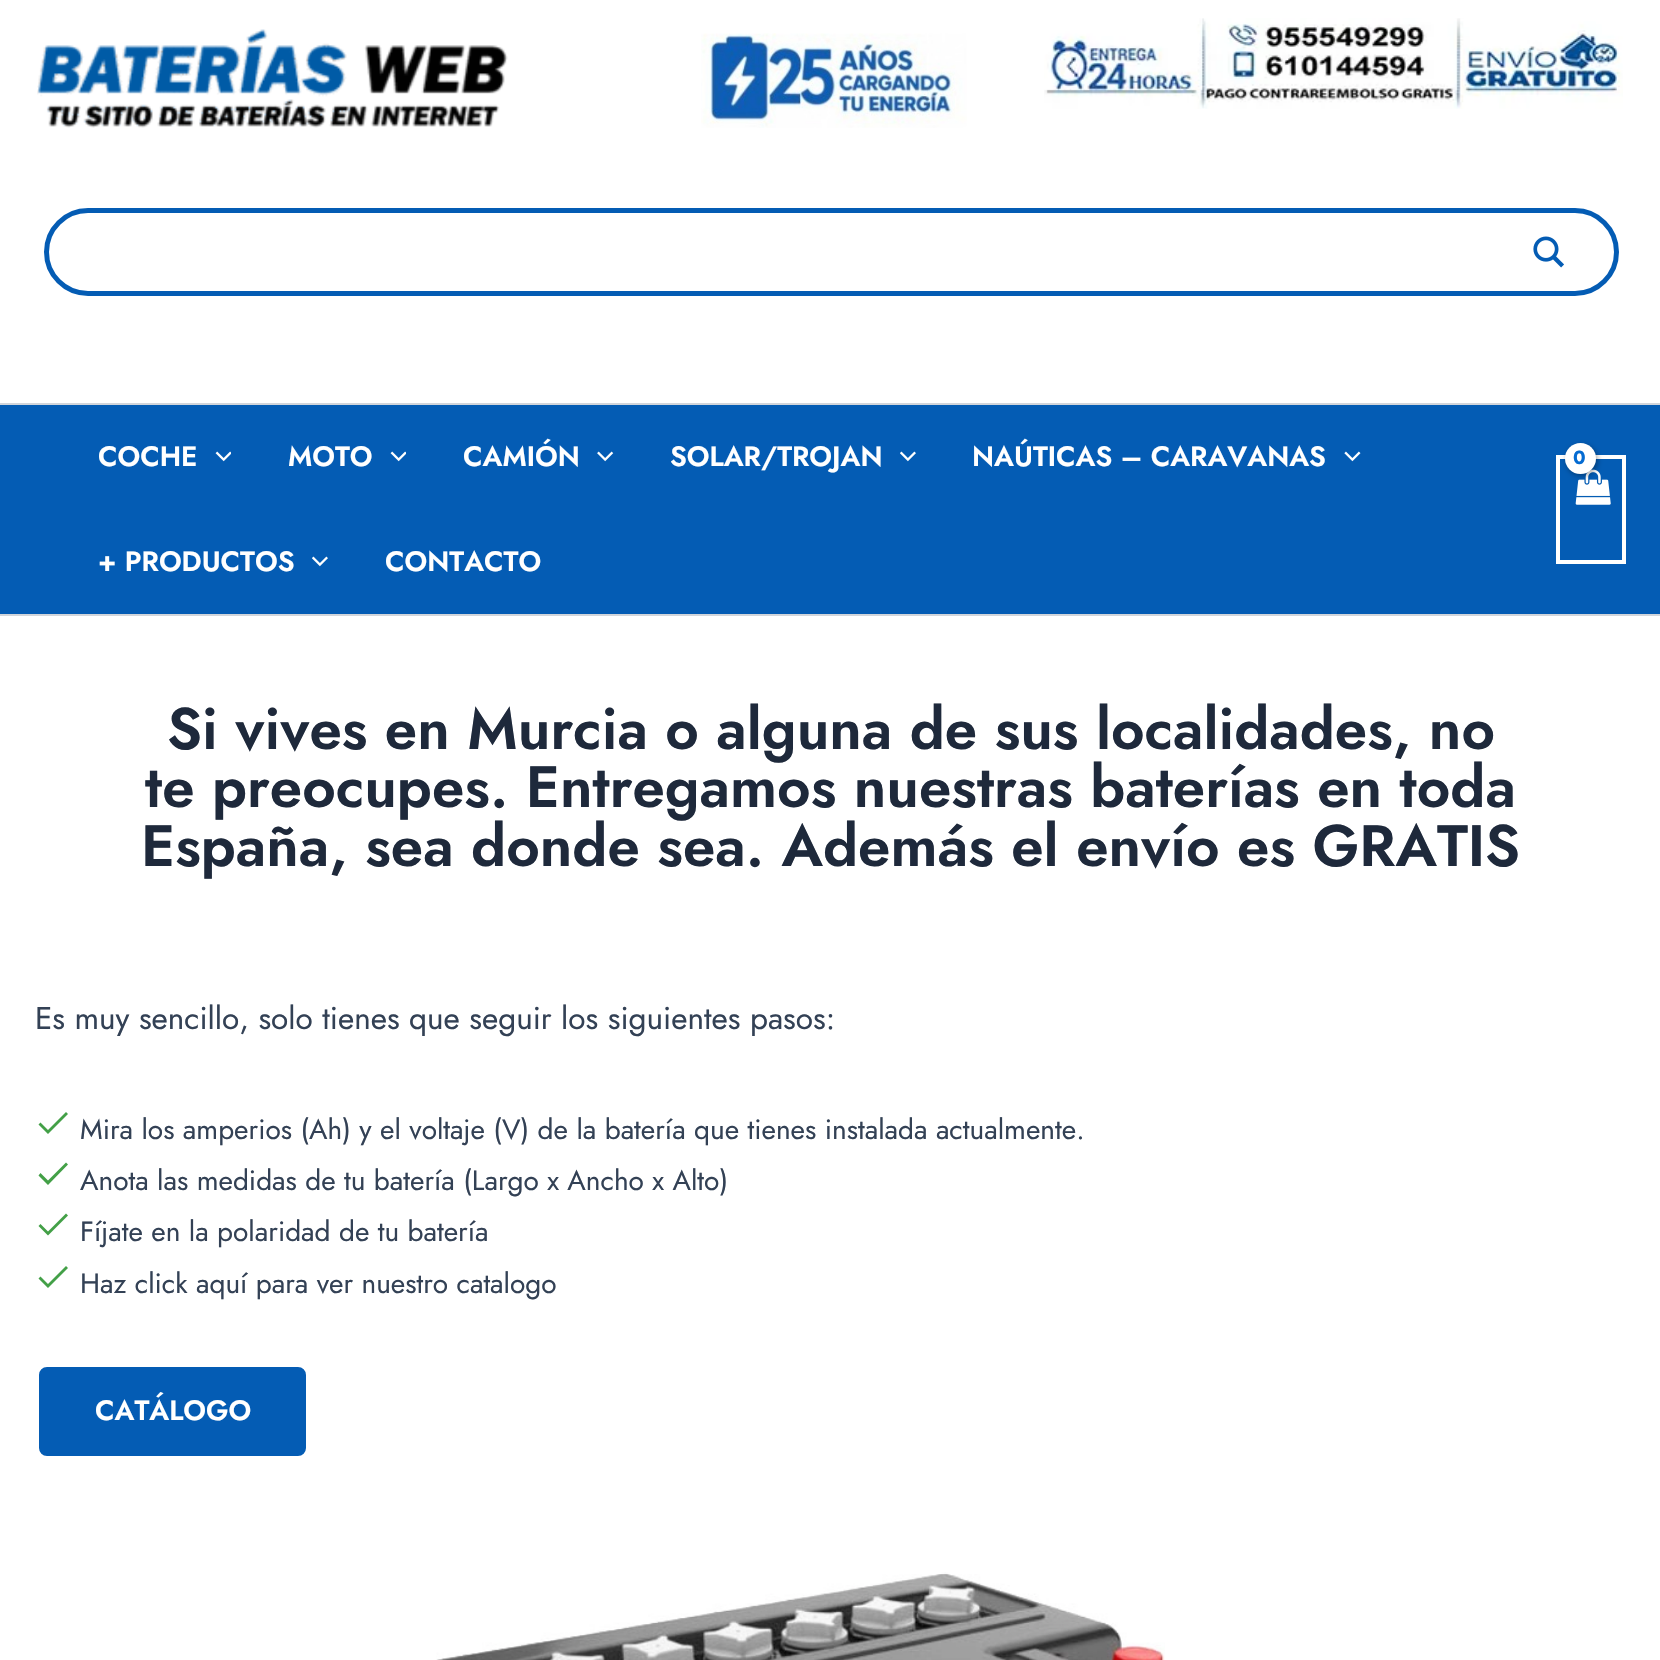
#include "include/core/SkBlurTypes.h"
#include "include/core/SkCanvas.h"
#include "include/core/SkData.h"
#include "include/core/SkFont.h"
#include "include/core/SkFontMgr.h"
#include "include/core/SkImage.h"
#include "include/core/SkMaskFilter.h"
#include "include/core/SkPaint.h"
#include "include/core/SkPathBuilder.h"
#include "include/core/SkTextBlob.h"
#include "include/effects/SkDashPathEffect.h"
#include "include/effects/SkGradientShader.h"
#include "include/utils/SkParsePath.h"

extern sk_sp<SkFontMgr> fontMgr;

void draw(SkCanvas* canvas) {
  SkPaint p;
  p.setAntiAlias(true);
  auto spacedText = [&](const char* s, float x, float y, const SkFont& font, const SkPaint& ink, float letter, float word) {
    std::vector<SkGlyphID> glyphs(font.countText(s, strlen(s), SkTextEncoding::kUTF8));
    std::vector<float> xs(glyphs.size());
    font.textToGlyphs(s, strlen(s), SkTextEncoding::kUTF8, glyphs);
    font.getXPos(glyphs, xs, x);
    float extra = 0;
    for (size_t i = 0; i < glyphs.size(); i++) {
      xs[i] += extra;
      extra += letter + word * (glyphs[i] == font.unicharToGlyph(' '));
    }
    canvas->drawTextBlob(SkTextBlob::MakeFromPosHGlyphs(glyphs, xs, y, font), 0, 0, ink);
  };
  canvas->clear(SK_ColorWHITE);
  canvas->drawImageRect(SkImages::DeferredFromEncodedData(SkData::MakeFromFileName("images/1.png")), SkRect::MakeLTRB(37, 29, 508, 128), SkSamplingOptions());
  canvas->drawImageRect(SkImages::DeferredFromEncodedData(SkData::MakeFromFileName("images/2.png")), SkRect::MakeLTRB(701, 33, 967, 128), SkSamplingOptions());
  canvas->drawImageRect(SkImages::DeferredFromEncodedData(SkData::MakeFromFileName("images/3.png")), SkRect::MakeLTRB(1044, 18, 1623, 109), SkSamplingOptions());
  p.setColor(SkColorSetRGB(209, 213, 219));
  canvas->drawRect(SkRect::MakeLTRB(0, 403, 1660, 405), p);
  p.setStyle(SkPaint::kStroke_Style);
  p.setStrokeWidth(5);
  p.setColor(SkColorSetRGB(4, 92, 180));
  canvas->drawRoundRect(SkRect::MakeLTRB(46.5f, 210.5f, 1616.5f, 293.5f), 41.5f, 41.5f, p);
  canvas->drawImageRect(SkImages::DeferredFromEncodedData(SkData::MakeFromFileName("images/4.png")), SkRect::MakeLTRB(1533, 236, 1564, 268), SkSamplingOptions());
  p.setStyle(SkPaint::kFill_Style);
  canvas->drawRect(SkRect::MakeLTRB(0, 405, 1660, 614), p);
  p.setColor(SkColorSetRGB(209, 213, 219));
  canvas->drawRect(SkRect::MakeLTRB(0, 614, 1660, 616), p);
  canvas->drawImageRect(SkImages::DeferredFromEncodedData(SkData::MakeFromFileName("images/5.png")), SkRect::MakeLTRB(215, 451, 231, 462), SkSamplingOptions());
  canvas->drawImageRect(SkImages::DeferredFromEncodedData(SkData::MakeFromFileName("images/5.png")), SkRect::MakeLTRB(390, 451, 406, 462), SkSamplingOptions());
  canvas->drawImageRect(SkImages::DeferredFromEncodedData(SkData::MakeFromFileName("images/6.png")), SkRect::MakeLTRB(597, 451, 614, 462), SkSamplingOptions());
  canvas->drawImageRect(SkImages::DeferredFromEncodedData(SkData::MakeFromFileName("images/7.png")), SkRect::MakeLTRB(900, 451, 916, 462), SkSamplingOptions());
  canvas->drawImageRect(SkImages::DeferredFromEncodedData(SkData::MakeFromFileName("images/8.png")), SkRect::MakeLTRB(1344, 451, 1361, 462), SkSamplingOptions());
  canvas->drawImageRect(SkImages::DeferredFromEncodedData(SkData::MakeFromFileName("images/7.png")), SkRect::MakeLTRB(312, 556, 328, 567), SkSamplingOptions());
  p.setStyle(SkPaint::kStroke_Style);
  p.setStrokeWidth(4);
  p.setColor(SK_ColorWHITE);
  canvas->drawRect(SkRect::MakeLTRB(1558, 457, 1624, 562), p);
  canvas->drawImageRect(SkImages::DeferredFromEncodedData(SkData::MakeFromFileName("images/9.png")), SkRect::MakeLTRB(1575, 469, 1611, 505), SkSamplingOptions());
  p.setStyle(SkPaint::kFill_Style);
  p.setColor(SkColorSetARGB(77, 0, 0, 0));
  p.setMaskFilter(SkMaskFilter::MakeBlur(kNormal_SkBlurStyle, 2.5f));
  canvas->drawRoundRect(SkRect::MakeLTRB(1566, 445, 1598, 476), 15.5f, 15.5f, p);
  p.setMaskFilter(nullptr);
  p.setColor(SK_ColorWHITE);
  canvas->drawCircle(1580.5f, 458.5f, 15.5f, p);
  p.setColor(SkColorSetRGB(67, 160, 71));
  canvas->drawPath(SkPathBuilder().moveTo(66, 1112).lineTo(48, 1130).lineTo(40.5f, 1122.5f).lineTo(38.5f, 1124.5f).lineTo(48, 1134).lineTo(68, 1114).close().detach(), p);
  canvas->drawPath(SkPathBuilder().moveTo(66, 1162.5f).lineTo(48, 1180.5f).lineTo(40.5f, 1173).lineTo(38.5f, 1175.5f).lineTo(48, 1185).lineTo(68, 1164.5f).close().detach(), p);
  canvas->drawPath(SkPathBuilder().moveTo(66, 1213.5f).lineTo(48, 1231.5f).lineTo(40.5f, 1224).lineTo(38.5f, 1226).lineTo(48, 1235.5f).lineTo(68, 1215.5f).close().detach(), p);
  canvas->drawPath(SkPathBuilder().moveTo(66, 1266).lineTo(48, 1284).lineTo(40.5f, 1276.5f).lineTo(38.5f, 1278.5f).lineTo(48, 1288).lineTo(68, 1268).close().detach(), p);
  p.setColor(SkColorSetRGB(4, 92, 180));
  canvas->drawRoundRect(SkRect::MakeLTRB(37, 1365, 308, 1458), 10, 10, p);
  p.setStyle(SkPaint::kStroke_Style);
  p.setColor(SK_ColorWHITE);
  canvas->drawRoundRect(SkRect::MakeLTRB(37, 1365, 308, 1458), 10, 10, p);
  canvas->drawImageRect(SkImages::DeferredFromEncodedData(SkData::MakeFromFileName("images/10.png")), SkRect::MakeLTRB(436, 1572, 1165, 1660), SkSamplingOptions());
  SkFont font1(fontMgr->matchFamilyStyle("Jost", SkFontStyle(600, SkFontStyle::kNormal_Width, SkFontStyle::kUpright_Slant)), 28);
  font1.setSubpixel(true);
  p.setStyle(SkPaint::kFill_Style);
  canvas->drawString("COCHE", 98, 466, font1, p);
  canvas->drawString("MOTO", 288, 466, font1, p);
  canvas->drawString("CAMIÓN", 463, 466, font1, p);
  canvas->drawString("SOLAR/TROJAN", 670, 466, font1, p);
  canvas->drawString("NAÚTICAS – CARAVANAS", 972, 466, font1, p);
  canvas->drawString("+ PRODUCTOS", 98, 571, font1, p);
  canvas->drawString("CONTACTO", 385, 571, font1, p);
  SkFont font2(fontMgr->matchFamilyStyle("Jost", SkFontStyle::Bold()), 19);
  font2.setSubpixel(true);
  p.setColor(SkColorSetRGB(4, 107, 210));
  spacedText("0", 1573, 464, font2, p, -1, 0);
  SkFont font3(fontMgr->matchFamilyStyle("Jost", SkFontStyle(600, SkFontStyle::kNormal_Width, SkFontStyle::kUpright_Slant)), 58.3f);
  font3.setSubpixel(true);
  p.setColor(SkColorSetRGB(30, 41, 59));
  canvas->drawString("Si vives en Murcia o alguna de sus localidades, no", 167, 749, font3, p);
  canvas->drawString("te preocupes. Entregamos nuestras baterías en toda", 145, 807, font3, p);
  canvas->drawString("España, sea donde sea. Además el envío es GRATIS", 141, 866, font3, p);
  SkFont font4(fontMgr->matchFamilyStyle("Jost", SkFontStyle::Normal()), 31.5f);
  font4.setSubpixel(true);
  p.setColor(SkColorSetRGB(51, 65, 85));
  canvas->drawString("Es muy sencillo, solo tienes que seguir los siguientes pasos:", 35, 1029, font4, p);
  SkFont font5(fontMgr->matchFamilyStyle("Jost", SkFontStyle::Normal()), 28);
  font5.setSubpixel(true);
  canvas->drawString("Mira los amperios (Ah) y el voltaje (V) de la batería que tienes instalada actualmente.", 80, 1139, font5, p);
  canvas->drawString("Anota las medidas de tu batería (Largo x Ancho x Alto)", 80, 1190, font5, p);
  canvas->drawString("Fíjate en la polaridad de tu batería", 80, 1241, font5, p);
  canvas->drawString("Haz click aquí para ver nuestro catalogo", 80, 1293, font5, p);
  p.setColor(SK_ColorWHITE);
  canvas->drawString("CATÁLOGO", 95, 1420, font1, p);
}
